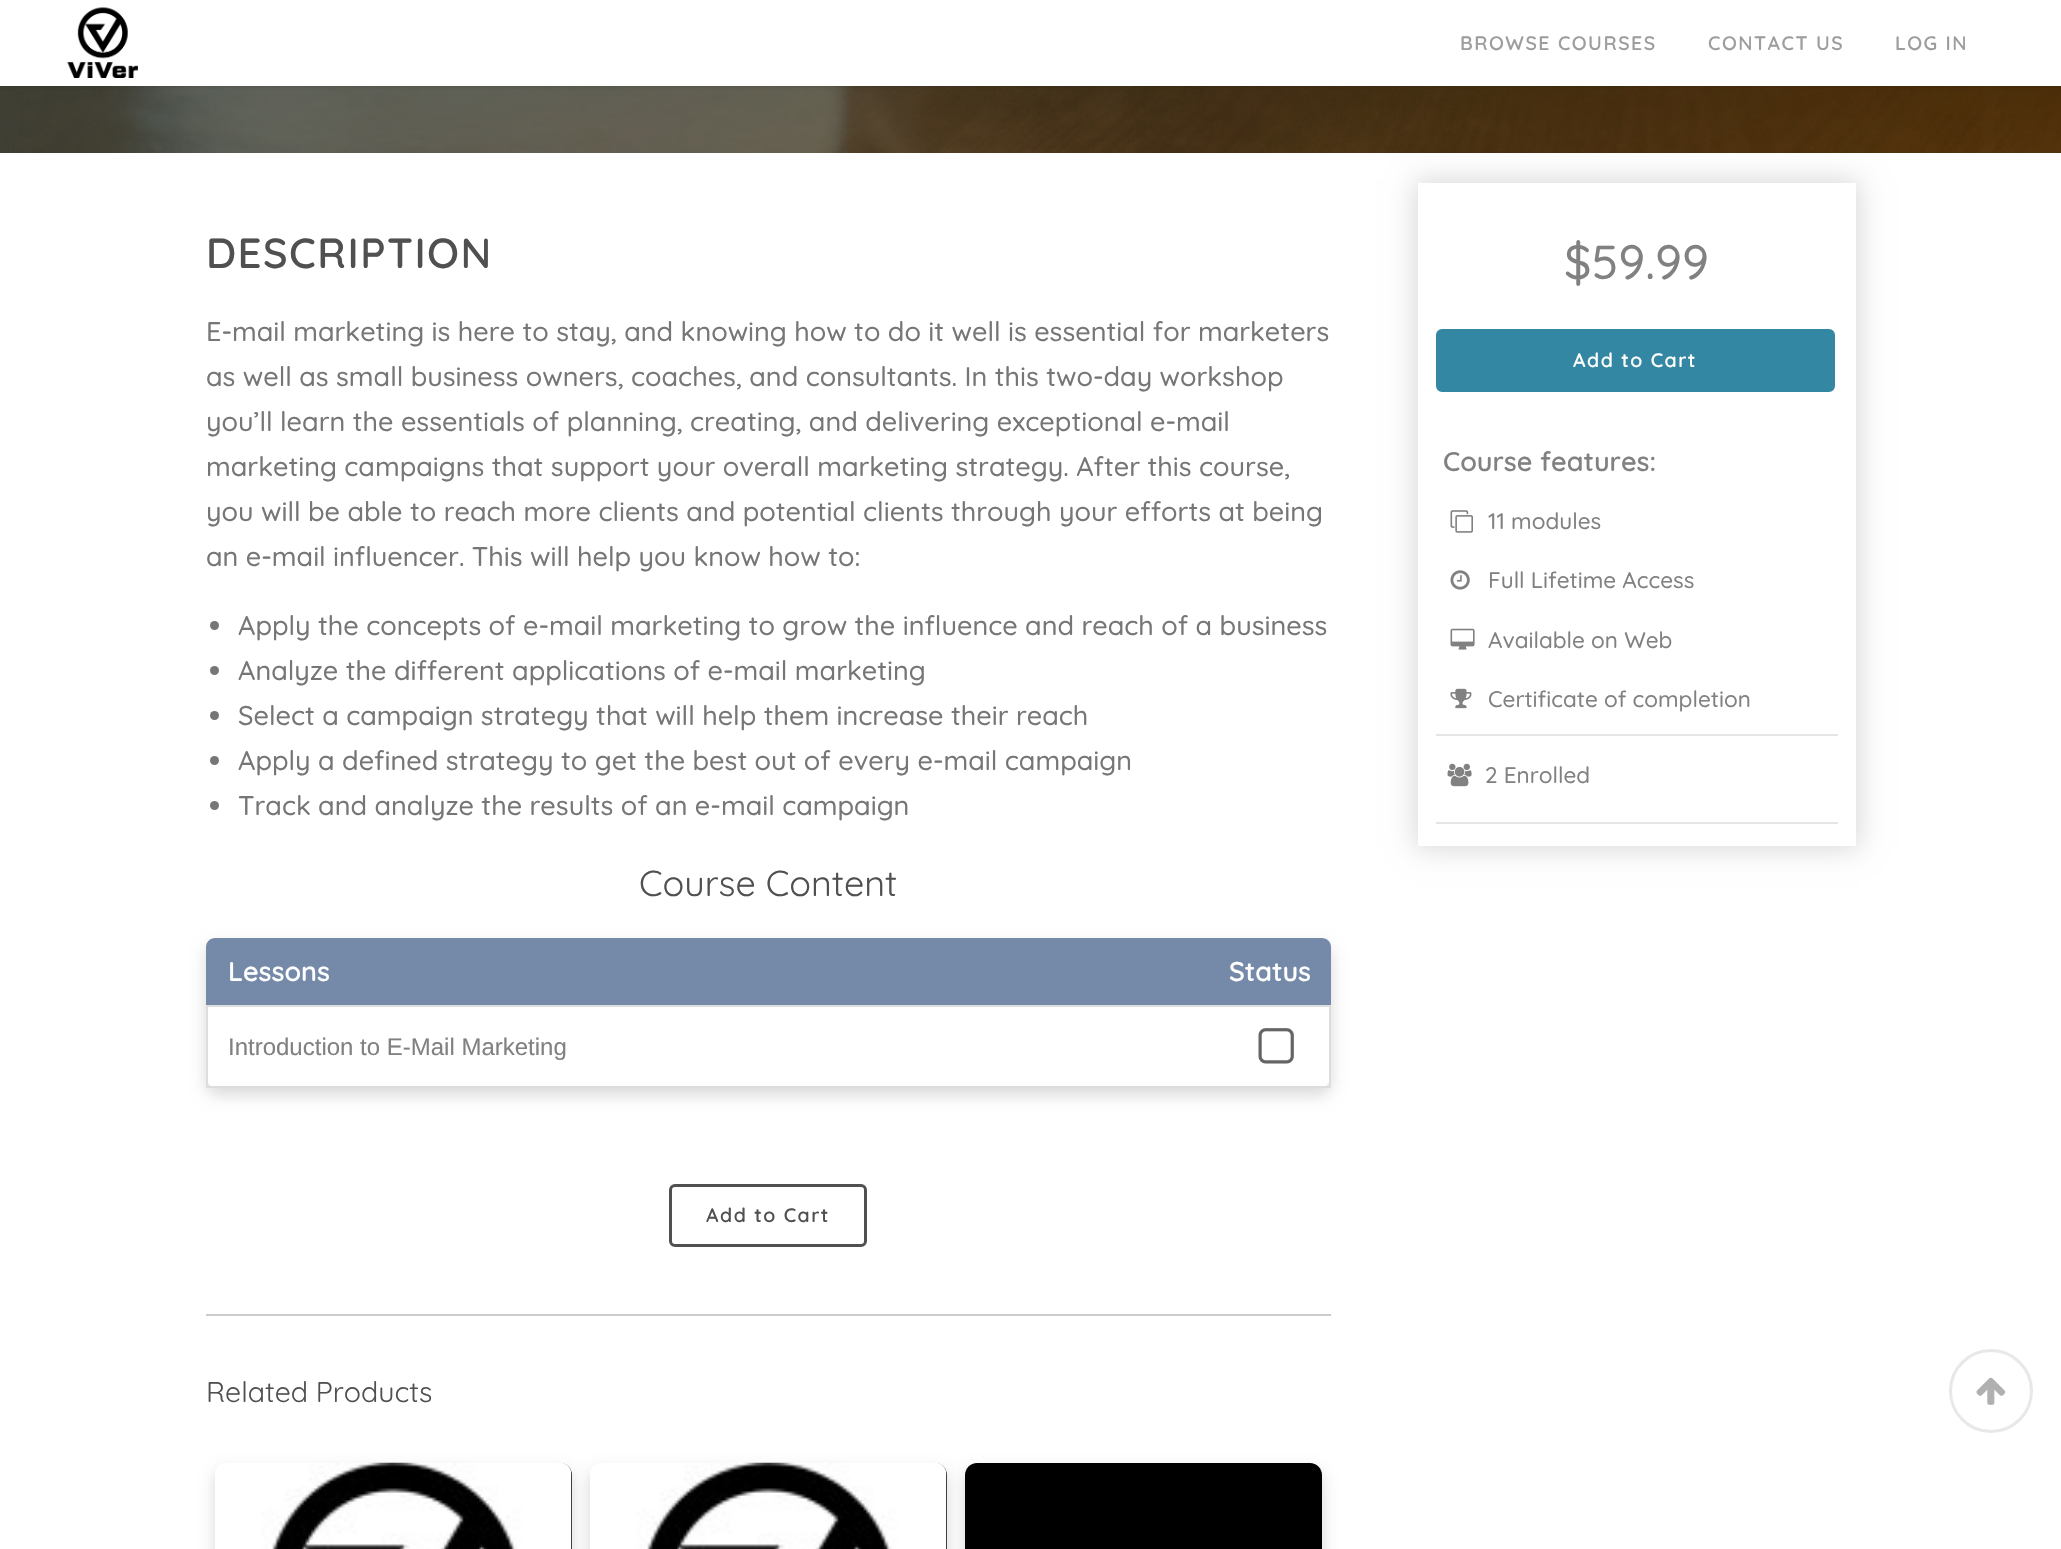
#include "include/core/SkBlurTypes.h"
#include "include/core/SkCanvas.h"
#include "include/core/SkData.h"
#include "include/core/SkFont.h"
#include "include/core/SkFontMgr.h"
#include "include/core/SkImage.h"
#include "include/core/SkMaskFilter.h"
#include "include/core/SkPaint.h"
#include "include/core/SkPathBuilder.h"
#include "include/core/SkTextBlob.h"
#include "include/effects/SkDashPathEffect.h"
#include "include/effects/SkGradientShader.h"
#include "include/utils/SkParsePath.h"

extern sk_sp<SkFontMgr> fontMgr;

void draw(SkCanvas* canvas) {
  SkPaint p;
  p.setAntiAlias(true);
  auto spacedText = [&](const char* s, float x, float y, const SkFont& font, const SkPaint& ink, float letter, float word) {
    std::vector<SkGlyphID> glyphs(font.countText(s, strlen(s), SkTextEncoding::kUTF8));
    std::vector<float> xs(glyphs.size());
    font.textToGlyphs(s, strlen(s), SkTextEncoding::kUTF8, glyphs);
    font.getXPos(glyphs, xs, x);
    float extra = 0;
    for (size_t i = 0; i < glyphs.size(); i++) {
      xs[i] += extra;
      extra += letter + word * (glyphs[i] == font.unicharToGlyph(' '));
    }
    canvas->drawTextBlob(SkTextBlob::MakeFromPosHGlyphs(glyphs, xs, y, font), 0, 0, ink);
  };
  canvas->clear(SK_ColorWHITE);
  p.setColor(SkColorSetARGB(38, 0, 0, 0));
  p.setMaskFilter(SkMaskFilter::MakeBlur(kNormal_SkBlurStyle, 13));
  canvas->drawRect(SkRect::MakeLTRB(1415, 180, 1859, 849), p);
  p.setMaskFilter(nullptr);
  canvas->drawImageRect(SkImages::DeferredFromEncodedData(SkData::MakeFromFileName("images/2.png")), SkRect::MakeLTRB(0, 86, 2061, 153), SkSamplingOptions());
  p.setColor(SkColorSetARGB(28, 0, 0, 0));
  p.setMaskFilter(SkMaskFilter::MakeBlur(kNormal_SkBlurStyle, 2));
  canvas->drawRect(SkRect::MakeLTRB(0, 2, 2061, 87), p);
  p.setMaskFilter(nullptr);
  p.setColor(SK_ColorWHITE);
  canvas->drawRect(SkRect::MakeLTRB(0, 0, 2061, 86), p);
  canvas->drawImageRect(SkImages::DeferredFromEncodedData(SkData::MakeFromFileName("images/1.png")), SkRect::MakeLTRB(67, 7, 138, 78), SkSamplingOptions());
  p.setColor(SkColorSetRGB(118, 118, 118));
  canvas->drawCircle(214.5f, 625.5f, 4.5f, p);
  canvas->drawCircle(214.5f, 670.5f, 4.5f, p);
  canvas->drawCircle(214.5f, 715.5f, 4.5f, p);
  canvas->drawCircle(214.5f, 760.5f, 4.5f, p);
  canvas->drawCircle(214.5f, 805.5f, 4.5f, p);
  p.setColor(SkColorSetARGB(38, 0, 0, 0));
  p.setMaskFilter(SkMaskFilter::MakeBlur(kNormal_SkBlurStyle, 7.5f));
  canvas->drawRoundRect(SkRect::MakeLTRB(206, 945, 1331, 1095), 12, 12, p);
  p.setMaskFilter(nullptr);
  p.setColor(SK_ColorWHITE);
  canvas->drawRoundRect(SkRect::MakeLTRB(206, 938, 1331, 1088), 12, 12, p);
  p.setColor(SkColorSetRGB(117, 138, 169));
  canvas->drawPath(SkPathBuilder().moveTo(215, 938).lineTo(1322, 938).cubicTo(1327, 938, 1331, 942, 1331, 947).lineTo(1331, 1005).lineTo(206, 1005).lineTo(206, 947).cubicTo(206, 942, 210, 938, 215, 938).close().detach(), p);
  p.setStyle(SkPaint::kStroke_Style);
  p.setStrokeWidth(2);
  p.setColor(SkColorSetRGB(221, 221, 221));
  canvas->drawRect(SkRect::MakeLTRB(207, 1006, 1330, 1087), p);
  canvas->drawImageRect(SkImages::DeferredFromEncodedData(SkData::MakeFromFileName("images/3.png")), SkRect::MakeLTRB(1258, 1028, 1294, 1064), SkSamplingOptions());
  p.setStrokeWidth(3);
  p.setColor(SkColorSetRGB(80, 80, 80));
  canvas->drawRoundRect(SkRect::MakeLTRB(670.5f, 1185.5f, 865.5f, 1245.5f), 4.5f, 4.5f, p);
  p.setStyle(SkPaint::kFill_Style);
  p.setColor(SkColorSetRGB(204, 204, 204));
  canvas->drawRect(SkRect::MakeLTRB(206, 1314, 1331, 1316), p);
  p.setColor(SkColorSetARGB(38, 0, 0, 0));
  p.setMaskFilter(SkMaskFilter::MakeBlur(kNormal_SkBlurStyle, 7.5f));
  canvas->drawRoundRect(SkRect::MakeLTRB(215, 1470, 572, 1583), 11, 11, p);
  p.setMaskFilter(nullptr);
  p.setColor(SK_ColorWHITE);
  canvas->drawRoundRect(SkRect::MakeLTRB(215, 1463, 572, 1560), 11, 11, p);
  p.setColor(SkColorSetARGB(38, 0, 0, 0));
  p.setMaskFilter(SkMaskFilter::MakeBlur(kNormal_SkBlurStyle, 7.5f));
  canvas->drawRoundRect(SkRect::MakeLTRB(590, 1470, 947, 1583), 11, 11, p);
  p.setMaskFilter(nullptr);
  p.setColor(SK_ColorBLACK);
  canvas->drawPath(SkPathBuilder().moveTo(227, 1463).lineTo(560, 1463).cubicTo(566.5f, 1463, 572, 1468.5f, 572, 1475).lineTo(572, 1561).lineTo(215, 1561).lineTo(215, 1475).cubicTo(215, 1468.5f, 220.5f, 1463, 227, 1463).close().detach(), p);
  canvas->drawImageRect(SkImages::DeferredFromEncodedData(SkData::MakeFromFileName("images/4.png")), SkRect::MakeLTRB(215, 1462, 572, 1549), SkSamplingOptions());
  p.setColor(SK_ColorWHITE);
  canvas->drawRoundRect(SkRect::MakeLTRB(590, 1463, 947, 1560), 11, 11, p);
  p.setColor(SkColorSetARGB(38, 0, 0, 0));
  p.setMaskFilter(SkMaskFilter::MakeBlur(kNormal_SkBlurStyle, 7.5f));
  canvas->drawRoundRect(SkRect::MakeLTRB(965, 1470, 1322, 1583), 11, 11, p);
  p.setMaskFilter(nullptr);
  p.setColor(SK_ColorBLACK);
  canvas->drawPath(SkPathBuilder().moveTo(602, 1463).lineTo(935, 1463).cubicTo(941.5f, 1463, 947, 1468.5f, 947, 1475).lineTo(947, 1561).lineTo(590, 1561).lineTo(590, 1475).cubicTo(590, 1468.5f, 595.5f, 1463, 602, 1463).close().detach(), p);
  canvas->drawImageRect(SkImages::DeferredFromEncodedData(SkData::MakeFromFileName("images/5.png")), SkRect::MakeLTRB(590, 1462, 947, 1549), SkSamplingOptions());
  p.setColor(SK_ColorWHITE);
  canvas->drawRoundRect(SkRect::MakeLTRB(965, 1463, 1322, 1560), 11, 11, p);
  p.setColor(SK_ColorBLACK);
  canvas->drawPath(SkPathBuilder().moveTo(977, 1463).lineTo(1310, 1463).cubicTo(1316.5f, 1463, 1322, 1468.5f, 1322, 1475).lineTo(1322, 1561).lineTo(965, 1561).lineTo(965, 1475).cubicTo(965, 1468.5f, 970.5f, 1463, 977, 1463).close().detach(), p);
  p.setColor(SK_ColorWHITE);
  canvas->drawRect(SkRect::MakeLTRB(1418, 183, 1856, 846), p);
  p.setColor(SkColorSetRGB(51, 135, 162));
  canvas->drawRoundRect(SkRect::MakeLTRB(1437.5f, 330.5f, 1833.5f, 390.5f), 4.5f, 4.5f, p);
  p.setStyle(SkPaint::kStroke_Style);
  canvas->drawRoundRect(SkRect::MakeLTRB(1437.5f, 330.5f, 1833.5f, 390.5f), 4.5f, 4.5f, p);
  canvas->drawImageRect(SkImages::DeferredFromEncodedData(SkData::MakeFromFileName("images/6.png")), SkRect::MakeLTRB(1450, 510, 1473, 533), SkSamplingOptions());
  canvas->drawImageRect(SkImages::DeferredFromEncodedData(SkData::MakeFromFileName("images/7.png")), SkRect::MakeLTRB(1450, 570, 1470, 590), SkSamplingOptions());
  canvas->drawImageRect(SkImages::DeferredFromEncodedData(SkData::MakeFromFileName("images/8.png")), SkRect::MakeLTRB(1450, 628, 1475, 650), SkSamplingOptions());
  canvas->drawImageRect(SkImages::DeferredFromEncodedData(SkData::MakeFromFileName("images/9.png")), SkRect::MakeLTRB(1450, 688, 1472, 709), SkSamplingOptions());
  p.setStyle(SkPaint::kFill_Style);
  p.setColor(SkColorSetRGB(229, 229, 229));
  canvas->drawRect(SkRect::MakeLTRB(1436, 734, 1838, 736), p);
  canvas->drawRect(SkRect::MakeLTRB(1436, 822, 1838, 824), p);
  canvas->drawImageRect(SkImages::DeferredFromEncodedData(SkData::MakeFromFileName("images/10.png")), SkRect::MakeLTRB(1447, 763, 1472, 787), SkSamplingOptions());
  p.setStyle(SkPaint::kStroke_Style);
  p.setColor(SkColorSetRGB(232, 232, 232));
  canvas->drawCircle(1991, 1391, 40.5f, p);
  canvas->drawImageRect(SkImages::DeferredFromEncodedData(SkData::MakeFromFileName("images/11.png")), SkRect::MakeLTRB(1976, 1377, 2006, 1405), SkSamplingOptions());
  SkFont font1(fontMgr->matchFamilyStyle("Quicksand", SkFontStyle(600, SkFontStyle::kNormal_Width, SkFontStyle::kUpright_Slant)), 19.5f);
  font1.setSubpixel(true);
  p.setStyle(SkPaint::kFill_Style);
  p.setColor(SkColorSetRGB(157, 157, 157));
  spacedText("BROWSE COURSES", 1460, 50, font1, p, 1.5f, 0);
  spacedText("CONTACT US", 1708, 50, font1, p, 1.5f, 0);
  spacedText("LOG IN", 1895, 50, font1, p, 1.5f, 0);
  SkFont font2(fontMgr->matchFamilyStyle("Quicksand", SkFontStyle(600, SkFontStyle::kNormal_Width, SkFontStyle::kUpright_Slant)), 42);
  font2.setSubpixel(true);
  p.setColor(SkColorSetRGB(80, 80, 80));
  spacedText("DESCRIPTION", 206, 268, font2, p, 1.5f, 0);
  SkFont font3(fontMgr->matchFamilyStyle("Quicksand", SkFontStyle(500, SkFontStyle::kNormal_Width, SkFontStyle::kUpright_Slant)), 27);
  font3.setSubpixel(true);
  p.setColor(SkColorSetRGB(118, 118, 118));
  canvas->drawString("E-mail marketing is here to stay, and knowing how to do it well is essential for marketers", 206, 341, font3, p);
  canvas->drawString("as well as small business owners, coaches, and consultants. In this two-day workshop", 206, 386, font3, p);
  canvas->drawString("you’ll learn the essentials of planning, creating, and delivering exceptional e-mail", 206, 431, font3, p);
  canvas->drawString("marketing campaigns that support your overall marketing strategy. After this course,", 206, 476, font3, p);
  canvas->drawString("you will be able to reach more clients and potential clients through your efforts at being", 206, 521, font3, p);
  canvas->drawString("an e-mail influencer. This will help you know how to:", 206, 566, font3, p);
  canvas->drawString("Apply the concepts of e-mail marketing to grow the influence and reach of a business", 238, 635, font3, p);
  canvas->drawString("Analyze the different applications of e-mail marketing", 238, 680, font3, p);
  canvas->drawString("Select a campaign strategy that will help them increase their reach", 238, 725, font3, p);
  canvas->drawString("Apply a defined strategy to get the best out of every e-mail campaign", 238, 770, font3, p);
  canvas->drawString("Track and analyze the results of an e-mail campaign", 238, 815, font3, p);
  SkFont font4(fontMgr->matchFamilyStyle("Quicksand", SkFontStyle::Normal()), 36);
  font4.setSubpixel(true);
  p.setColor(SkColorSetRGB(80, 80, 80));
  canvas->drawString("Course Content", 639, 896, font4, p);
  SkFont font5(fontMgr->matchFamilyStyle("Quicksand", SkFontStyle(600, SkFontStyle::kNormal_Width, SkFontStyle::kUpright_Slant)), 27);
  font5.setSubpixel(true);
  p.setColor(SK_ColorWHITE);
  canvas->drawString("Lessons", 228, 981, font5, p);
  canvas->drawString("Status", 1229, 981, font5, p);
  SkFont font6(fontMgr->matchFamilyStyle("Liberation Sans", SkFontStyle::Normal()), 24);
  font6.setSubpixel(true);
  p.setColor(SkColorSetRGB(129, 129, 129));
  canvas->drawString("Introduction to E-Mail Marketing", 228, 1055, font6, p);
  p.setColor(SkColorSetRGB(80, 80, 80));
  spacedText("Add to Cart", 706, 1222, font1, p, 1.5f, 0);
  SkFont font7(fontMgr->matchFamilyStyle("Quicksand", SkFontStyle::Normal()), 28.5f);
  font7.setSubpixel(true);
  canvas->drawString("Related Products", 206, 1402, font7, p);
  SkFont font8(fontMgr->matchFamilyStyle("Quicksand", SkFontStyle(500, SkFontStyle::kNormal_Width, SkFontStyle::kUpright_Slant)), 48);
  font8.setSubpixel(true);
  p.setColor(SkColorSetRGB(129, 129, 129));
  canvas->drawString("$59.99", 1564, 279, font8, p);
  p.setColor(SK_ColorWHITE);
  spacedText("Add to Cart", 1573, 367, font1, p, 1.5f, 0);
  p.setColor(SkColorSetRGB(129, 129, 129));
  canvas->drawString("Course features:", 1443, 471, font5, p);
  SkFont font9(fontMgr->matchFamilyStyle("Quicksand", SkFontStyle(500, SkFontStyle::kNormal_Width, SkFontStyle::kUpright_Slant)), 22.5f);
  font9.setSubpixel(true);
  canvas->drawString("11 modules", 1488, 529, font9, p);
  canvas->drawString("Full Lifetime Access", 1488, 588, font9, p);
  canvas->drawString("Available on Web", 1488, 648, font9, p);
  canvas->drawString("Certificate of completion", 1488, 707, font9, p);
  canvas->drawString("2 Enrolled", 1485, 783, font9, p);
}
